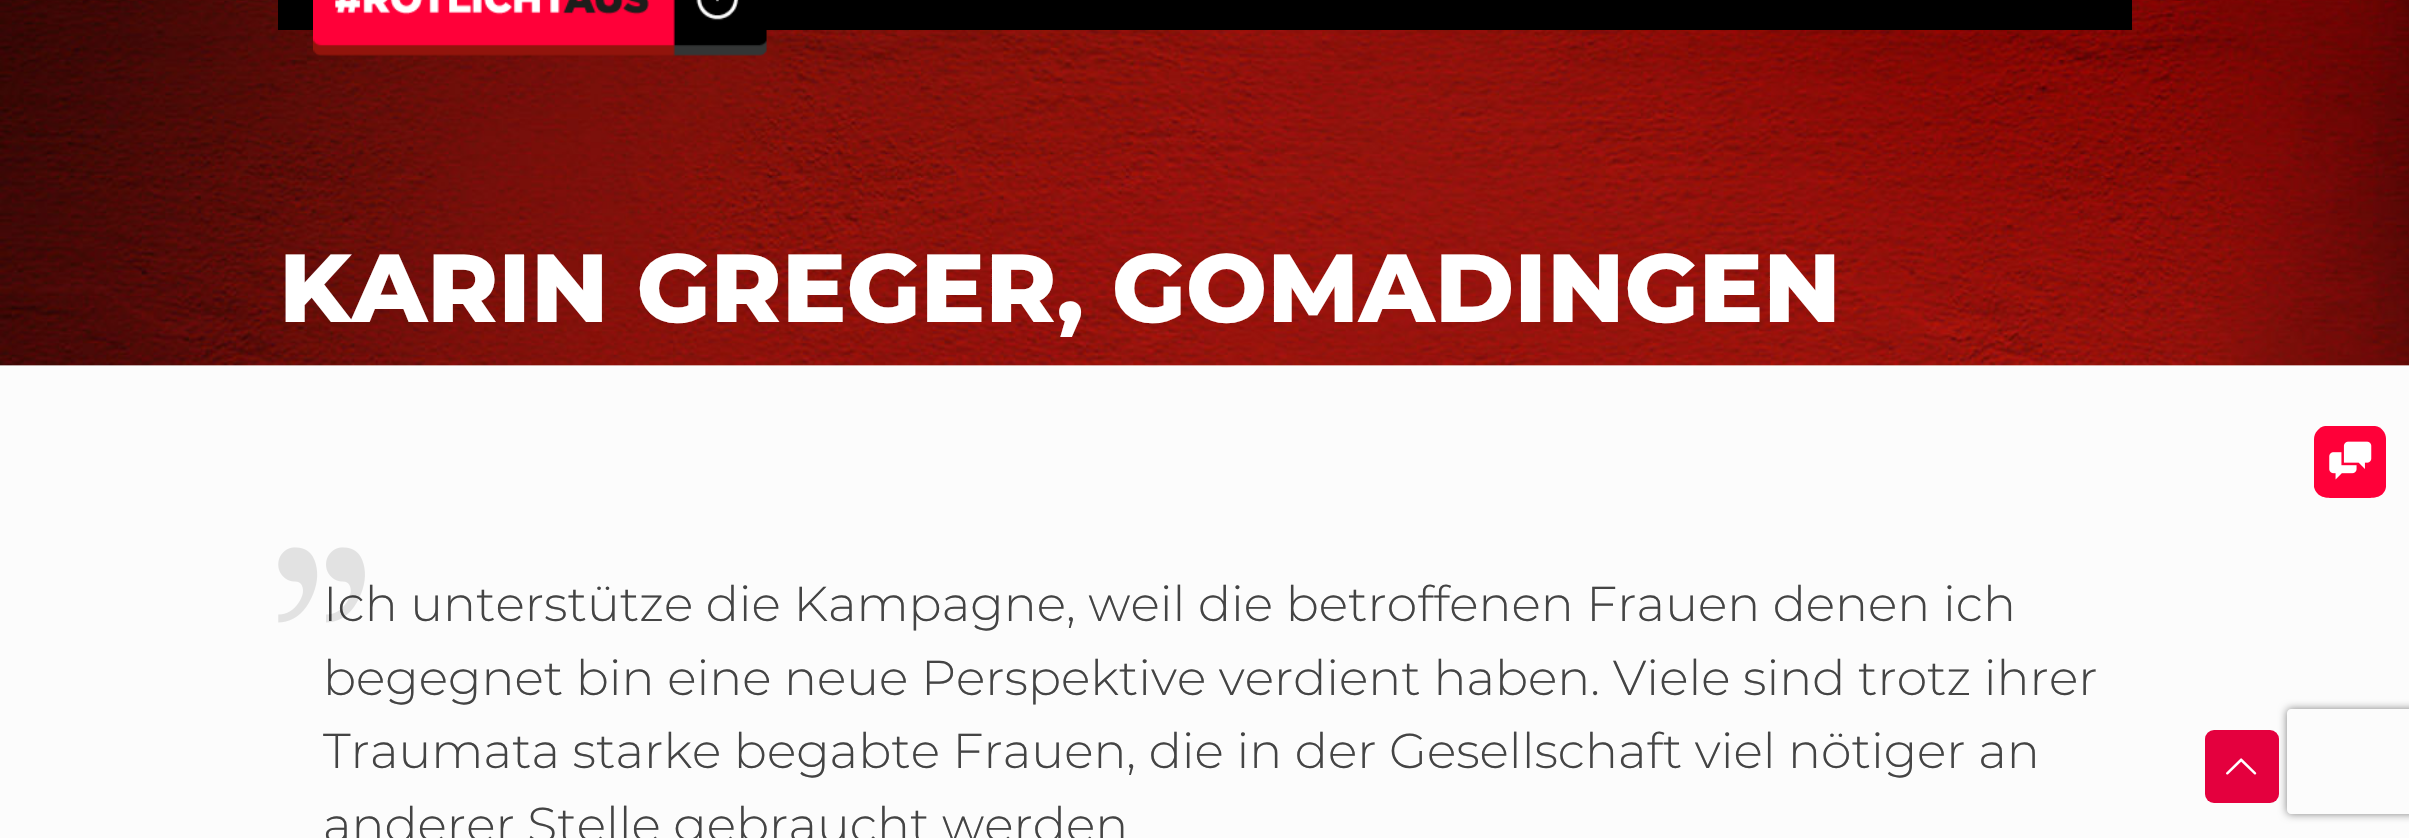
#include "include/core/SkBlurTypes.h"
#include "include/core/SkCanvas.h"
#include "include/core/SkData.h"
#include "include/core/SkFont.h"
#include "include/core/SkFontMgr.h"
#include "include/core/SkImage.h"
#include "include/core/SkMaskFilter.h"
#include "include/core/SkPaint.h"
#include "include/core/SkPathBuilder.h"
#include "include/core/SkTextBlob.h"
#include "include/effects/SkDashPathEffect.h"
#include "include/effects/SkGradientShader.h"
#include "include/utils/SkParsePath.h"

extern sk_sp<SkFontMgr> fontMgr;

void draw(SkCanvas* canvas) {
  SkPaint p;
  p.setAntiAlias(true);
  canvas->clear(SkColorSetRGB(252, 252, 252));
  canvas->drawImageRect(SkImages::DeferredFromEncodedData(SkData::MakeFromFileName("images/2.png")), SkRect::MakeLTRB(0, 0, 2409, 366), SkSamplingOptions());
  p.setColor(SK_ColorBLACK);
  canvas->drawRect(SkRect::MakeLTRB(278, 0, 2132, 30), p);
  canvas->drawImageRect(SkImages::DeferredFromEncodedData(SkData::MakeFromFileName("images/1.png")), SkRect::MakeLTRB(313, 0, 767, 56), SkSamplingOptions());
  p.setColor(SkColorSetRGB(255, 0, 57));
  canvas->drawPath(SkPathBuilder().moveTo(2386, 439).lineTo(2386, 487).cubicTo(2384, 498, 2374, 498, 2365, 498).lineTo(2335, 498).cubicTo(2326, 498, 2317, 498, 2314, 487).lineTo(2314, 439).cubicTo(2314, 433, 2319, 427, 2325, 426).lineTo(2375, 426).cubicTo(2382, 427, 2386, 433, 2386, 439).close().detach(), p);
  canvas->drawImageRect(SkImages::DeferredFromEncodedData(SkData::MakeFromFileName("images/4.png")), SkRect::MakeLTRB(2329, 441, 2372, 480), SkSamplingOptions());
  canvas->save();
  canvas->clipPath(SkPathBuilder(SkPathFillType::kEvenOdd).moveTo(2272, 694).lineTo(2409, 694).lineTo(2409, 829).lineTo(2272, 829).close().moveTo(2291, 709).lineTo(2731, 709).cubicTo(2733, 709, 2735, 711, 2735, 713).lineTo(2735, 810).cubicTo(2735, 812, 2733, 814, 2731, 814).lineTo(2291, 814).cubicTo(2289, 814, 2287, 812, 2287, 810).lineTo(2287, 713).cubicTo(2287, 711, 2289, 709, 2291, 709).close().detach(), true);
  p.setColor(SkColorSetRGB(128, 128, 128));
  p.setMaskFilter(SkMaskFilter::MakeBlur(kNormal_SkBlurStyle, 4.5f));
  canvas->drawRoundRect(SkRect::MakeLTRB(2287, 709, 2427, 814), 4, 4, p);
  p.setMaskFilter(nullptr);
  canvas->restore();
  p.setColor(SkColorSetRGB(228, 0, 62));
  canvas->drawRoundRect(SkRect::MakeLTRB(2205, 730, 2279, 803), 9, 9, p);
  canvas->drawImageRect(SkImages::DeferredFromEncodedData(SkData::MakeFromFileName("images/5.png")), SkRect::MakeLTRB(2226, 758, 2257, 775), SkSamplingOptions());
  SkFont font1(fontMgr->matchFamilyStyle("Montserrat", SkFontStyle(800, SkFontStyle::kNormal_Width, SkFontStyle::kUpright_Slant)), 96.25f);
  font1.setSubpixel(true);
  p.setColor(SK_ColorWHITE);
  canvas->drawString("KARIN GREGER, GOMADINGEN", 279, 322, font1, p);
  SkFont font2(fontMgr->matchFamilyStyle("Montserrat", SkFontStyle(300, SkFontStyle::kNormal_Width, SkFontStyle::kUpright_Slant)), 49);
  font2.setSubpixel(true);
  p.setColor(SkColorSetRGB(68, 68, 68));
  canvas->drawString("Ich unterstütze die Kampagne, weil die betroffenen Frauen denen ich", 323, 621, font2, p);
  canvas->drawImageRect(SkImages::DeferredFromEncodedData(SkData::MakeFromFileName("images/3.png")), SkRect::MakeLTRB(278, 547, 365, 623), SkSamplingOptions());
  canvas->drawString("begegnet bin eine neue Perspektive verdient haben. Viele sind trotz ihrer", 323, 695, font2, p);
  canvas->drawString("Traumata starke begabte Frauen, die in der Gesellschaft viel nötiger an", 323, 768, font2, p);
  canvas->drawString("anderer Stelle gebraucht werden", 323, 842, font2, p);
}
